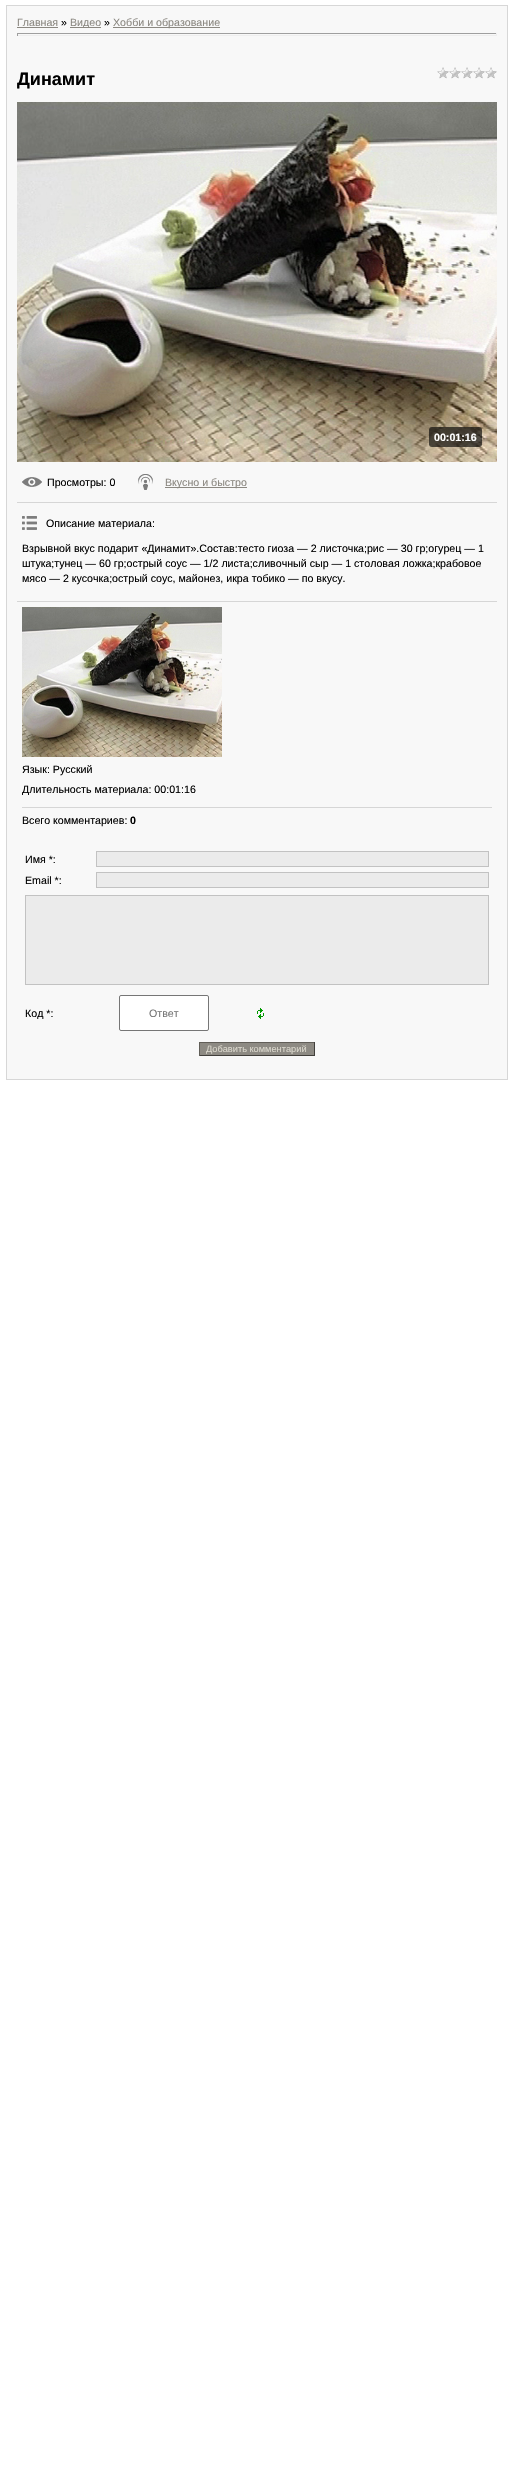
#include "include/core/SkBlurTypes.h"
#include "include/core/SkCanvas.h"
#include "include/core/SkData.h"
#include "include/core/SkFont.h"
#include "include/core/SkFontMgr.h"
#include "include/core/SkImage.h"
#include "include/core/SkMaskFilter.h"
#include "include/core/SkPaint.h"
#include "include/core/SkPathBuilder.h"
#include "include/core/SkTextBlob.h"
#include "include/effects/SkDashPathEffect.h"
#include "include/effects/SkGradientShader.h"
#include "include/utils/SkParsePath.h"

extern sk_sp<SkFontMgr> fontMgr;

void draw(SkCanvas* canvas) {
  SkPaint p;
  p.setAntiAlias(true);
  canvas->clear(SK_ColorWHITE);
  p.setStyle(SkPaint::kStroke_Style);
  p.setStrokeWidth(1);
  p.setColor(SkColorSetRGB(215, 215, 215));
  canvas->drawRect(SkRect::MakeLTRB(6.5f, 5.5f, 507.5f, 1079.5f), p);
  p.setStyle(SkPaint::kFill_Style);
  p.setColor(SkColorSetRGB(248, 248, 248));
  canvas->drawRect(SkRect::MakeLTRB(7, 6, 507, 1079), p);
  p.setColor(SkColorSetRGB(139, 136, 129));
  canvas->drawRect(SkRect::MakeLTRB(17, 27, 58, 28), p);
  canvas->drawRect(SkRect::MakeLTRB(70, 27, 101, 28), p);
  canvas->drawRect(SkRect::MakeLTRB(113, 27, 220, 28), p);
  p.setColor(SkColorSetRGB(159, 159, 159));
  canvas->drawRect(SkRect::MakeLTRB(17, 33, 497, 34), p);
  p.setColor(SkColorSetRGB(238, 238, 238));
  canvas->drawRect(SkRect::MakeLTRB(496, 33, 497, 36), p);
  canvas->drawRect(SkRect::MakeLTRB(17, 35, 497, 36), p);
  p.setColor(SkColorSetRGB(159, 159, 159));
  canvas->drawRect(SkRect::MakeLTRB(17, 33, 18, 36), p);
  canvas->drawImageRect(SkImages::DeferredFromEncodedData(SkData::MakeFromFileName("images/1.png")), SkRect::MakeLTRB(437, 67, 497, 79), SkSamplingOptions());
  canvas->drawImageRect(SkImages::DeferredFromEncodedData(SkData::MakeFromFileName("images/2.png")), SkRect::MakeLTRB(17, 102, 497, 462), SkSamplingOptions());
  p.setColor(SkColorSetARGB(161, 0, 0, 0));
  canvas->drawRoundRect(SkRect::MakeLTRB(429, 427, 482, 447), 3, 3, p);
  canvas->drawImageRect(SkImages::DeferredFromEncodedData(SkData::MakeFromFileName("images/3.png")), SkRect::MakeLTRB(22, 477, 42, 487), SkSamplingOptions());
  canvas->drawImageRect(SkImages::DeferredFromEncodedData(SkData::MakeFromFileName("images/4.png")), SkRect::MakeLTRB(138, 474, 153, 490), SkSamplingOptions());
  p.setColor(SkColorSetRGB(139, 136, 129));
  canvas->drawRect(SkRect::MakeLTRB(165, 487, 247, 488), p);
  p.setColor(SkColorSetRGB(214, 214, 214));
  canvas->drawRect(SkRect::MakeLTRB(17, 502, 497, 503), p);
  canvas->drawImageRect(SkImages::DeferredFromEncodedData(SkData::MakeFromFileName("images/5.png")), SkRect::MakeLTRB(22, 516, 37, 530), SkSamplingOptions());
  canvas->drawRect(SkRect::MakeLTRB(17, 601, 497, 602), p);
  canvas->drawImageRect(SkImages::DeferredFromEncodedData(SkData::MakeFromFileName("images/6.png")), SkRect::MakeLTRB(22, 607, 222, 757), SkSamplingOptions());
  canvas->drawRect(SkRect::MakeLTRB(22, 807, 492, 808), p);
  p.setColor(SkColorSetRGB(235, 235, 235));
  canvas->drawRect(SkRect::MakeLTRB(96.5f, 851.5f, 488.5f, 866.5f), p);
  p.setStyle(SkPaint::kStroke_Style);
  p.setColor(SkColorSetRGB(194, 194, 194));
  canvas->drawRect(SkRect::MakeLTRB(96.5f, 851.5f, 488.5f, 866.5f), p);
  p.setStyle(SkPaint::kFill_Style);
  p.setColor(SkColorSetRGB(235, 235, 235));
  canvas->drawRect(SkRect::MakeLTRB(96.5f, 872.5f, 488.5f, 887.5f), p);
  p.setStyle(SkPaint::kStroke_Style);
  p.setColor(SkColorSetRGB(194, 194, 194));
  canvas->drawRect(SkRect::MakeLTRB(96.5f, 872.5f, 488.5f, 887.5f), p);
  p.setStyle(SkPaint::kFill_Style);
  p.setColor(SkColorSetRGB(235, 235, 235));
  canvas->drawRect(SkRect::MakeLTRB(25.5f, 895.5f, 488.5f, 984.5f), p);
  p.setStyle(SkPaint::kStroke_Style);
  p.setColor(SkColorSetRGB(194, 194, 194));
  canvas->drawRect(SkRect::MakeLTRB(25.5f, 895.5f, 488.5f, 984.5f), p);
  p.setStyle(SkPaint::kFill_Style);
  p.setColor(SK_ColorWHITE);
  canvas->drawRoundRect(SkRect::MakeLTRB(119.5f, 995.5f, 208.5f, 1030.5f), 1.5f, 1.5f, p);
  p.setStyle(SkPaint::kStroke_Style);
  p.setColor(SkColorSetRGB(118, 118, 118));
  canvas->drawRoundRect(SkRect::MakeLTRB(119.5f, 995.5f, 208.5f, 1030.5f), 1.5f, 1.5f, p);
  canvas->drawImageRect(SkImages::DeferredFromEncodedData(SkData::MakeFromFileName("images/7.png")), SkRect::MakeLTRB(257, 1008, 264, 1019), SkSamplingOptions());
  p.setStyle(SkPaint::kFill_Style);
  p.setColor(SkColorSetRGB(141, 138, 131));
  canvas->drawRect(SkRect::MakeLTRB(200, 1043, 314, 1055), p);
  p.setColor(SkColorSetRGB(97, 94, 88));
  canvas->drawRect(SkRect::MakeLTRB(199, 1042, 315, 1043), p);
  p.setColor(SkColorSetRGB(65, 63, 59));
  canvas->drawRect(SkRect::MakeLTRB(314, 1042, 315, 1056), p);
  canvas->drawRect(SkRect::MakeLTRB(199, 1055, 315, 1056), p);
  p.setColor(SkColorSetRGB(97, 94, 88));
  canvas->drawRect(SkRect::MakeLTRB(199, 1042, 200, 1056), p);
  SkFont font1(fontMgr->matchFamilyStyle("Liberation Sans", SkFontStyle::Normal()), 10.65f);
  font1.setSubpixel(true);
  p.setColor(SkColorSetRGB(139, 136, 129));
  canvas->drawString("Главная", 17, 26, font1, p);
  p.setColor(SK_ColorBLACK);
  canvas->drawString("»", 61, 26, font1, p);
  p.setColor(SkColorSetRGB(139, 136, 129));
  canvas->drawString("Видео", 70, 26, font1, p);
  p.setColor(SK_ColorBLACK);
  canvas->drawString("»", 104, 26, font1, p);
  p.setColor(SkColorSetRGB(139, 136, 129));
  canvas->drawString("Хобби и образование", 113, 26, font1, p);
  SkFont font2(fontMgr->matchFamilyStyle("Liberation Sans", SkFontStyle::Bold()), 18);
  font2.setSubpixel(true);
  p.setColor(SK_ColorBLACK);
  canvas->drawString("Динамит", 17, 85, font2, p);
  SkFont font3(fontMgr->matchFamilyStyle("Liberation Sans", SkFontStyle::Bold()), 10.65f);
  font3.setSubpixel(true);
  p.setColor(SK_ColorWHITE);
  canvas->drawString("00:01:16", 434, 441, font3, p);
  p.setColor(SK_ColorBLACK);
  canvas->drawString("Просмотры: 0", 47, 486, font1, p);
  p.setColor(SkColorSetRGB(139, 136, 129));
  canvas->drawString("Вкусно и быстро", 165, 486, font1, p);
  p.setColor(SK_ColorBLACK);
  canvas->drawString("Описание материала:", 46, 527, font1, p);
  canvas->drawString("Взрывной вкус подарит «Динамит».Состав:тесто гиоза — 2 листочка;рис — 30 гр;огурец — 1", 22, 552, font1, p);
  canvas->drawString("штука;тунец — 60 гр;острый соус — 1/2 листа;сливочный сыр — 1 столовая ложка;крабовое", 22, 567, font1, p);
  canvas->drawString("мясо — 2 кусочка;острый соус, майонез, икра тобико — по вкусу.", 22, 582, font1, p);
  canvas->drawString("Язык: Русский", 22, 773, font1, p);
  canvas->drawString("Длительность материала: 00:01:16", 22, 793, font1, p);
  canvas->drawString("Всего комментариев:", 22, 824, font1, p);
  canvas->drawString("0", 130, 824, font3, p);
  canvas->drawString("Имя *:", 25, 863, font1, p);
  canvas->drawString("Email *:", 25, 884, font1, p);
  canvas->drawString("Код *:", 25, 1017, font1, p);
  p.setColor(SkColorSetRGB(117, 117, 117));
  canvas->drawString("Ответ", 149, 1017, font1, p);
  SkFont font4(fontMgr->matchFamilyStyle("Liberation Sans", SkFontStyle::Normal()), 9.25f);
  font4.setSubpixel(true);
  p.setColor(SkColorSetRGB(218, 215, 204));
  canvas->drawString("Добавить комментарий", 206, 1052, font4, p);
}
